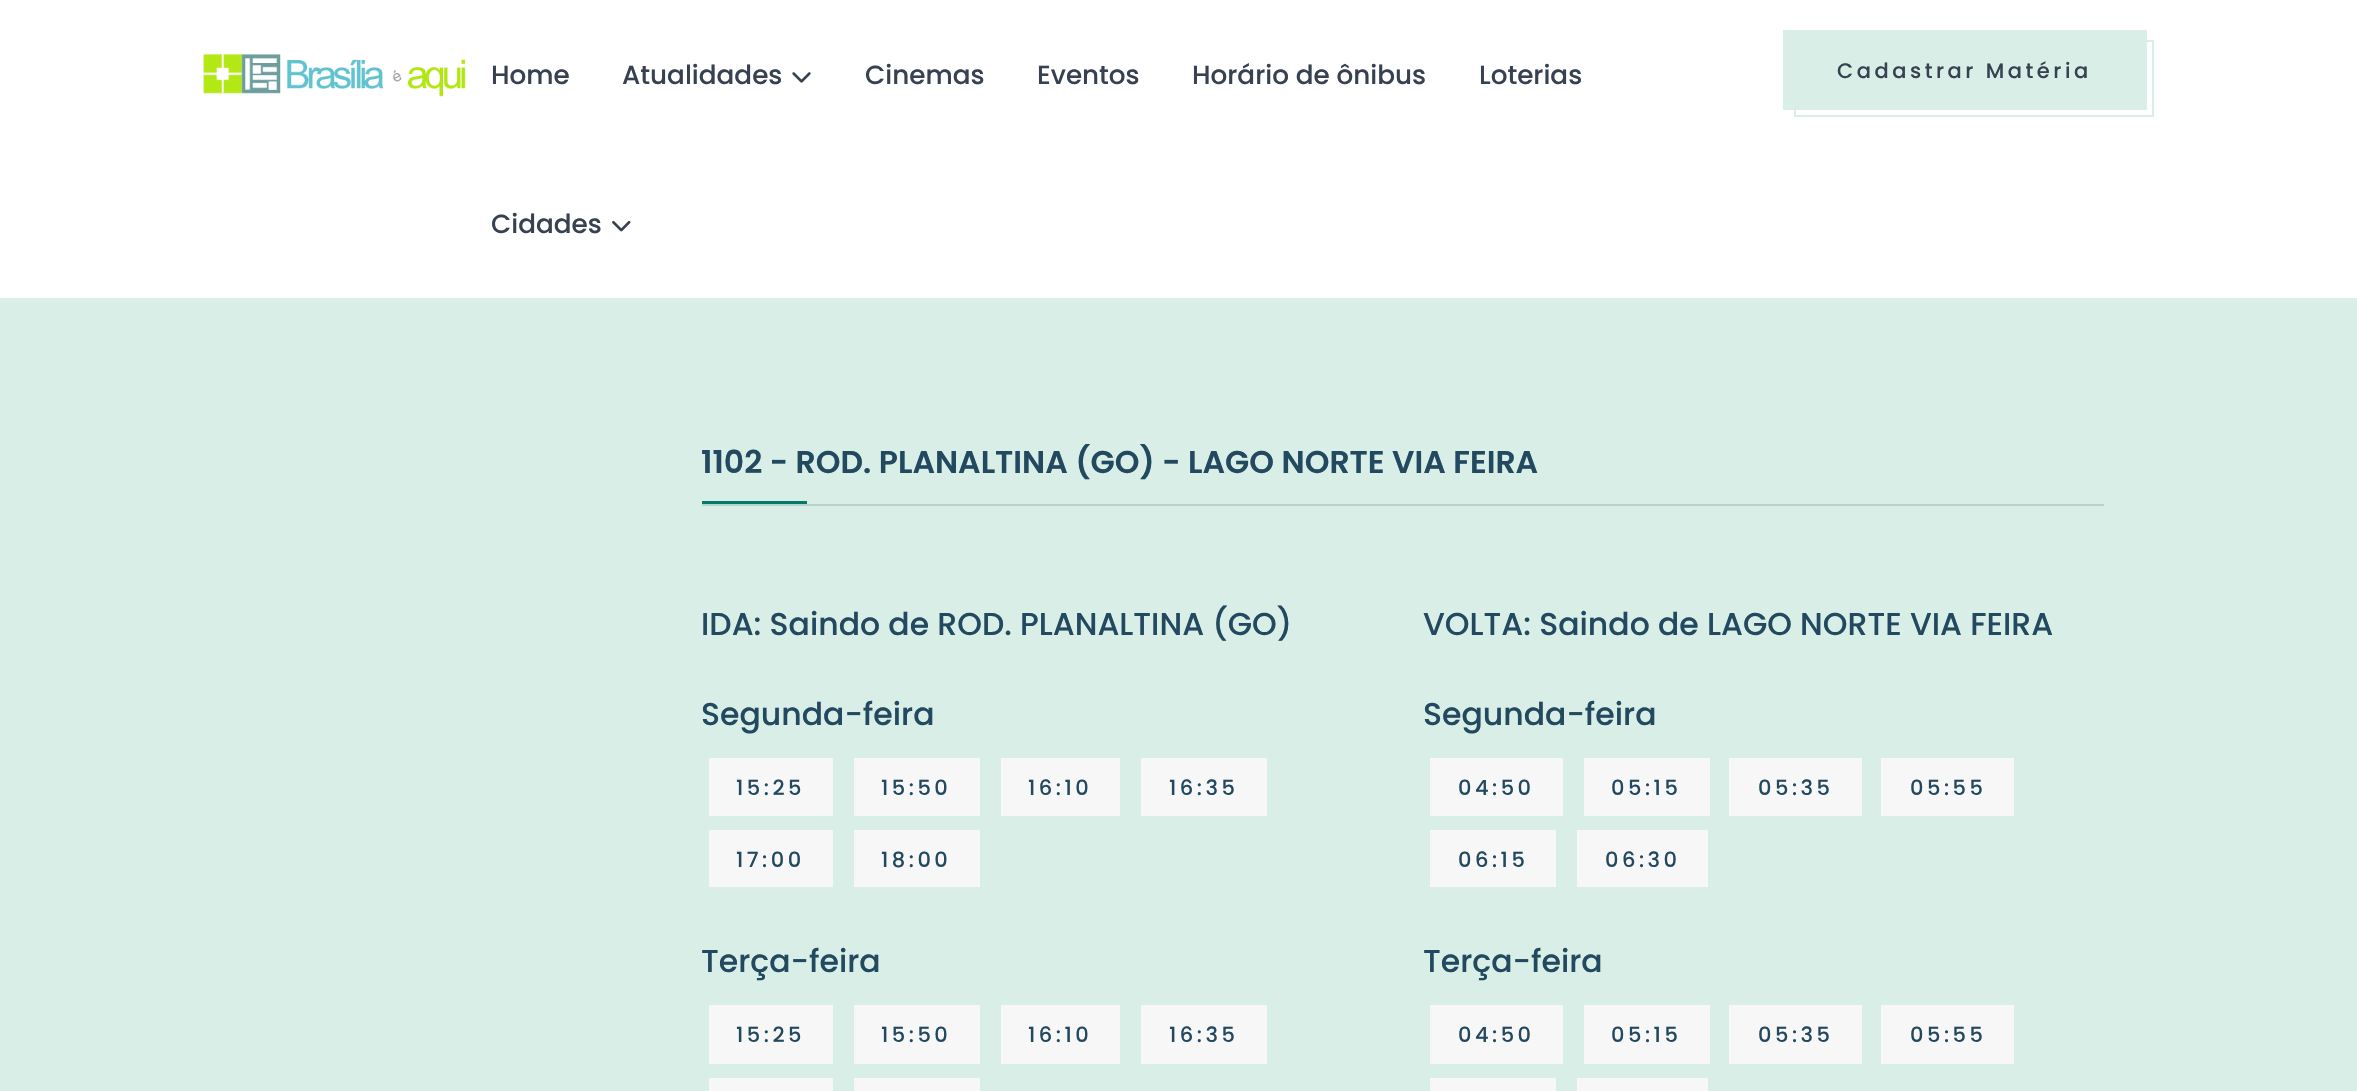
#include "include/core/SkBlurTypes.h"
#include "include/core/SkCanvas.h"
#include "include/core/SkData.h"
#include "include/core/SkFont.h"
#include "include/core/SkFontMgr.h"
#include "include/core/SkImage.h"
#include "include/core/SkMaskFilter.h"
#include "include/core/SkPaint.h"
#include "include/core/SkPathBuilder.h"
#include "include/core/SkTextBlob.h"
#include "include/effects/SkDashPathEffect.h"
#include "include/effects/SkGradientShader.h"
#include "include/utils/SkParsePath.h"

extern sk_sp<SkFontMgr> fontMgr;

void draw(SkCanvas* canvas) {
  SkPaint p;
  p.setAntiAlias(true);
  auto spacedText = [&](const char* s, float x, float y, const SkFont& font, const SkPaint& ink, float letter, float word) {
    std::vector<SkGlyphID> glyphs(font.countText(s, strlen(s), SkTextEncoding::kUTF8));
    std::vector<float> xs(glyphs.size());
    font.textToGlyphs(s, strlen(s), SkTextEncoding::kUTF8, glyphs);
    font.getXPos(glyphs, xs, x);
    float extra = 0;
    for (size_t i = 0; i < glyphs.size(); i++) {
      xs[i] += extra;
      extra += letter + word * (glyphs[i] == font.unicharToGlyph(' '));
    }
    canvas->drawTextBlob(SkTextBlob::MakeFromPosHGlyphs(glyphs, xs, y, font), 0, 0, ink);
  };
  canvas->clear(SkColorSetRGB(216, 238, 230));
  p.setColor(SK_ColorWHITE);
  canvas->drawRect(SkRect::MakeLTRB(0, 0, 2357, 298), p);
  canvas->drawImageRect(SkImages::DeferredFromEncodedData(SkData::MakeFromFileName("images/1.png")), SkRect::MakeLTRB(203, 54, 466, 97), SkSamplingOptions());
  canvas->drawImageRect(SkImages::DeferredFromEncodedData(SkData::MakeFromFileName("images/2.png")), SkRect::MakeLTRB(792, 72, 811, 83), SkSamplingOptions());
  canvas->drawImageRect(SkImages::DeferredFromEncodedData(SkData::MakeFromFileName("images/3.png")), SkRect::MakeLTRB(612, 220, 631, 232), SkSamplingOptions());
  p.setStyle(SkPaint::kStroke_Style);
  p.setStrokeWidth(2);
  p.setColor(SkColorSetRGB(216, 238, 230));
  canvas->drawRect(SkRect::MakeLTRB(1795, 41, 2153, 116), p);
  p.setStyle(SkPaint::kFill_Style);
  canvas->drawRect(SkRect::MakeLTRB(1783, 30, 2147, 110), p);
  p.setColor(SkColorSetRGB(5, 121, 107));
  canvas->drawRect(SkRect::MakeLTRB(702, 501, 807, 504), p);
  p.setColor(SkColorSetRGB(184, 211, 201));
  canvas->drawRect(SkRect::MakeLTRB(702, 504, 2104, 506), p);
  p.setColor(SkColorSetRGB(247, 247, 247));
  canvas->drawRect(SkRect::MakeLTRB(709, 758, 833, 816), p);
  canvas->drawRect(SkRect::MakeLTRB(854, 758, 980, 816), p);
  canvas->drawRect(SkRect::MakeLTRB(1001, 758, 1120, 816), p);
  canvas->drawRect(SkRect::MakeLTRB(1141, 758, 1267, 816), p);
  canvas->drawRect(SkRect::MakeLTRB(709, 830, 833, 887), p);
  canvas->drawRect(SkRect::MakeLTRB(854, 830, 980, 887), p);
  canvas->drawRect(SkRect::MakeLTRB(709, 1005, 833, 1064), p);
  canvas->drawRect(SkRect::MakeLTRB(854, 1005, 980, 1064), p);
  canvas->drawRect(SkRect::MakeLTRB(1001, 1005, 1120, 1064), p);
  canvas->drawRect(SkRect::MakeLTRB(1141, 1005, 1267, 1064), p);
  canvas->drawRect(SkRect::MakeLTRB(709, 1078, 833, 1091), p);
  canvas->drawRect(SkRect::MakeLTRB(854, 1078, 980, 1091), p);
  canvas->drawRect(SkRect::MakeLTRB(1430, 758, 1563, 816), p);
  canvas->drawRect(SkRect::MakeLTRB(1584, 758, 1710, 816), p);
  canvas->drawRect(SkRect::MakeLTRB(1729, 758, 1862, 816), p);
  canvas->drawRect(SkRect::MakeLTRB(1881, 758, 2014, 816), p);
  canvas->drawRect(SkRect::MakeLTRB(1430, 830, 1556, 887), p);
  canvas->drawRect(SkRect::MakeLTRB(1577, 830, 1708, 887), p);
  canvas->drawRect(SkRect::MakeLTRB(1430, 1005, 1563, 1064), p);
  canvas->drawRect(SkRect::MakeLTRB(1584, 1005, 1710, 1064), p);
  canvas->drawRect(SkRect::MakeLTRB(1729, 1005, 1862, 1064), p);
  canvas->drawRect(SkRect::MakeLTRB(1881, 1005, 2014, 1064), p);
  canvas->drawRect(SkRect::MakeLTRB(1430, 1078, 1556, 1091), p);
  canvas->drawRect(SkRect::MakeLTRB(1577, 1078, 1708, 1091), p);
  SkFont font1(fontMgr->matchFamilyStyle("Poppins", SkFontStyle(500, SkFontStyle::kNormal_Width, SkFontStyle::kUpright_Slant)), 26.25f);
  font1.setSubpixel(true);
  p.setColor(SkColorSetRGB(55, 65, 81));
  canvas->drawString("Home", 491, 84, font1, p);
  canvas->drawString("Atualidades", 622, 84, font1, p);
  canvas->drawString("Cinemas", 865, 84, font1, p);
  canvas->drawString("Eventos", 1037, 84, font1, p);
  canvas->drawString("Horário de ônibus", 1192, 84, font1, p);
  canvas->drawString("Loterias", 1479, 84, font1, p);
  canvas->drawString("Cidades", 491, 233, font1, p);
  SkFont font2(fontMgr->matchFamilyStyle("Poppins", SkFontStyle(500, SkFontStyle::kNormal_Width, SkFontStyle::kUpright_Slant)), 21);
  font2.setSubpixel(true);
  spacedText("Cadastrar Matéria", 1837, 78, font2, p, 3.5f, 0);
  SkFont font3(fontMgr->matchFamilyStyle("Poppins", SkFontStyle(600, SkFontStyle::kNormal_Width, SkFontStyle::kUpright_Slant)), 31.5f);
  font3.setSubpixel(true);
  p.setColor(SkColorSetRGB(34, 73, 95));
  canvas->drawString("1102 - ROD. PLANALTINA (GO) - LAGO NORTE VIA FEIRA", 701, 473, font3, p);
  SkFont font4(fontMgr->matchFamilyStyle("Poppins", SkFontStyle(500, SkFontStyle::kNormal_Width, SkFontStyle::kUpright_Slant)), 31.5f);
  font4.setSubpixel(true);
  canvas->drawString("IDA: Saindo de ROD. PLANALTINA (GO)", 701, 635, font4, p);
  canvas->drawString("Segunda-feira", 701, 725, font4, p);
  spacedText("15:25", 736, 795, font2, p, 3.5f, 0);
  spacedText("15:50", 881, 795, font2, p, 3.5f, 0);
  spacedText("16:10", 1028, 795, font2, p, 3.5f, 0);
  spacedText("16:35", 1169, 795, font2, p, 3.5f, 0);
  spacedText("17:00", 736, 867, font2, p, 3.5f, 0);
  spacedText("18:00", 881, 867, font2, p, 3.5f, 0);
  canvas->drawString("Terça-feira", 701, 972, font4, p);
  spacedText("15:25", 736, 1042, font2, p, 3.5f, 0);
  spacedText("15:50", 881, 1042, font2, p, 3.5f, 0);
  spacedText("16:10", 1028, 1042, font2, p, 3.5f, 0);
  spacedText("16:35", 1169, 1042, font2, p, 3.5f, 0);
  canvas->drawString("VOLTA: Saindo de LAGO NORTE VIA FEIRA", 1423, 635, font4, p);
  canvas->drawString("Segunda-feira", 1423, 725, font4, p);
  spacedText("04:50", 1458, 795, font2, p, 3.5f, 0);
  spacedText("05:15", 1611, 795, font2, p, 3.5f, 0);
  spacedText("05:35", 1758, 795, font2, p, 3.5f, 0);
  spacedText("05:55", 1910, 795, font2, p, 3.5f, 0);
  spacedText("06:15", 1458, 867, font2, p, 3.5f, 0);
  spacedText("06:30", 1605, 867, font2, p, 3.5f, 0);
  canvas->drawString("Terça-feira", 1423, 972, font4, p);
  spacedText("04:50", 1458, 1042, font2, p, 3.5f, 0);
  spacedText("05:15", 1611, 1042, font2, p, 3.5f, 0);
  spacedText("05:35", 1758, 1042, font2, p, 3.5f, 0);
  spacedText("05:55", 1910, 1042, font2, p, 3.5f, 0);
}
